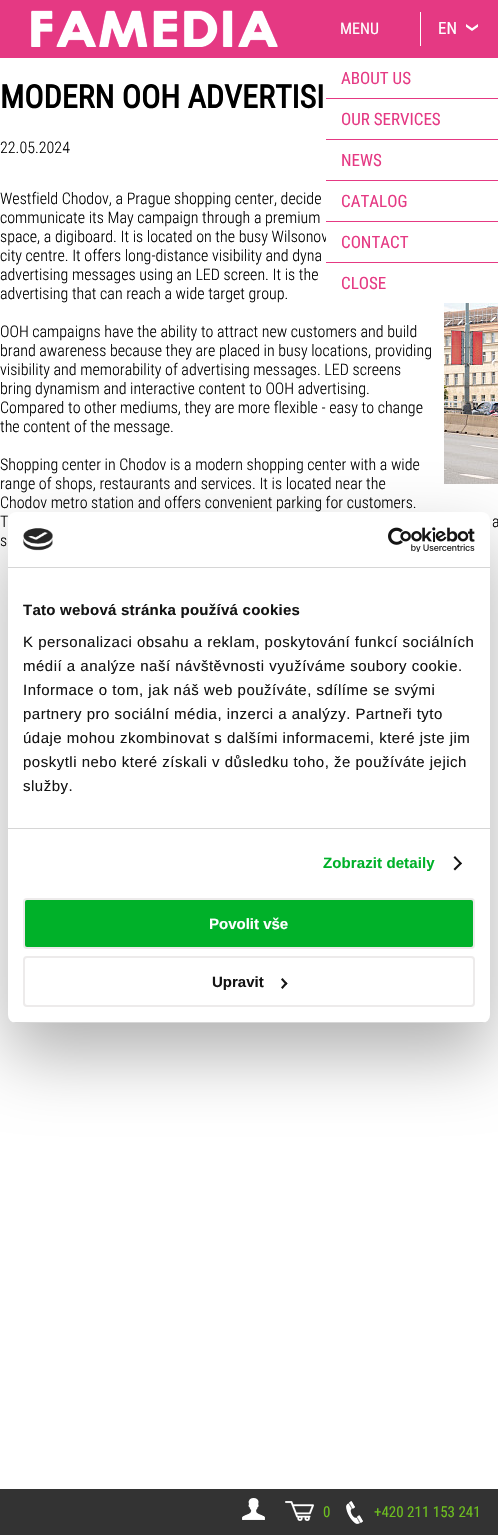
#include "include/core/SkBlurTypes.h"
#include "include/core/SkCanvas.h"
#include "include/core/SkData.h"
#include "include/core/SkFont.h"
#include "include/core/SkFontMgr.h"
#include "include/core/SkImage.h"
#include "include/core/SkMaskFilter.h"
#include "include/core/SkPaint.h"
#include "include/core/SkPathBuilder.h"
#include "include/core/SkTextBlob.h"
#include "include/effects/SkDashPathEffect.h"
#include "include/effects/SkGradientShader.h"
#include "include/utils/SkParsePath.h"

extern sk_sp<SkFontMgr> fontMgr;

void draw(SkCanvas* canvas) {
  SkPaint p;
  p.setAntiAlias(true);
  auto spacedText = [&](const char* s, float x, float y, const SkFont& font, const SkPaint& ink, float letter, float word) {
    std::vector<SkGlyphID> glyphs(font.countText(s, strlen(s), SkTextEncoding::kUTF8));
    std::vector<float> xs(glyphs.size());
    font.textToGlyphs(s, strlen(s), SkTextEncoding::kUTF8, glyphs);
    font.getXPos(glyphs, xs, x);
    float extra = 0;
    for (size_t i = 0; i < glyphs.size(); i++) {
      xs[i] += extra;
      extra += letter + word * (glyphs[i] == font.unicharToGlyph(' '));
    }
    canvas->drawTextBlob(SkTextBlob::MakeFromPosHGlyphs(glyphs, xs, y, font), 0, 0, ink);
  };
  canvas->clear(SK_ColorWHITE);
  p.setColor(SkColorSetRGB(229, 57, 131));
  canvas->drawRect(SkRect::MakeLTRB(0, 0, 498, 58), p);
  canvas->drawImageRect(SkImages::DeferredFromEncodedData(SkData::MakeFromFileName("images/1.png")), SkRect::MakeLTRB(31, 10, 278, 47), SkSamplingOptions());
  p.setColor(SK_ColorWHITE);
  canvas->drawRect(SkRect::MakeLTRB(420, 12, 421, 46), p);
  canvas->drawImageRect(SkImages::DeferredFromEncodedData(SkData::MakeFromFileName("images/2.png")), SkRect::MakeLTRB(466, 24, 478, 31), SkSamplingOptions());
  p.setColor(SkColorSetRGB(229, 57, 131));
  canvas->drawRect(SkRect::MakeLTRB(326, 98, 498, 99), p);
  canvas->drawRect(SkRect::MakeLTRB(326, 139, 498, 140), p);
  canvas->drawRect(SkRect::MakeLTRB(326, 180, 498, 181), p);
  canvas->drawRect(SkRect::MakeLTRB(326, 221, 498, 222), p);
  canvas->drawRect(SkRect::MakeLTRB(326, 262, 498, 263), p);
  canvas->drawImageRect(SkImages::DeferredFromEncodedData(SkData::MakeFromFileName("images/3.png")), SkRect::MakeLTRB(444, 303, 498, 484), SkSamplingOptions());
  p.setColor(SkColorSetARGB(77, 0, 0, 0));
  p.setMaskFilter(SkMaskFilter::MakeBlur(kNormal_SkBlurStyle, 34));
  canvas->drawRoundRect(SkRect::MakeLTRB(8, 544, 490, 1055), 8, 8, p);
  p.setMaskFilter(nullptr);
  p.setColor(SK_ColorWHITE);
  canvas->drawRoundRect(SkRect::MakeLTRB(8, 512, 490, 1023), 8, 8, p);
  p.setColor(SkColorSetRGB(214, 214, 214));
  canvas->drawRect(SkRect::MakeLTRB(8, 567, 490, 568), p);
  canvas->drawImageRect(SkImages::DeferredFromEncodedData(SkData::MakeFromFileName("images/4.png")), SkRect::MakeLTRB(23, 528, 53, 551), SkSamplingOptions());
  canvas->drawImageRect(SkImages::DeferredFromEncodedData(SkData::MakeFromFileName("images/5.png")), SkRect::MakeLTRB(388, 527, 475, 552), SkSamplingOptions());
  canvas->drawRect(SkRect::MakeLTRB(8, 828, 490, 829), p);
  p.setColor(SkColorSetRGB(20, 20, 20));
  canvas->drawPath(SkPathBuilder().moveTo(455, 856).lineTo(462, 863.5f).lineTo(460.5f, 864.5f).lineTo(453.5f, 857.5f).close().detach(), p);
  canvas->drawPath(SkPathBuilder().moveTo(460.5f, 862).lineTo(462, 863.5f).lineTo(455, 870.5f).lineTo(453.5f, 869).close().detach(), p);
  canvas->save();
  canvas->clipPath(SkPathBuilder().moveTo(16, 512).lineTo(482, 512).cubicTo(486.5f, 512, 490, 515.5f, 490, 520).lineTo(490, 1015).cubicTo(490, 1019.5f, 486.5f, 1023, 482, 1023).lineTo(16, 1023).cubicTo(11.5f, 1023, 8, 1019.5f, 8, 1015).lineTo(8, 520).cubicTo(8, 515.5f, 11.5f, 512, 16, 512).close().detach(), true);
  p.setColor(SkColorSetRGB(214, 214, 214));
  canvas->drawRect(SkRect::MakeLTRB(8, 1022, 490, 1023), p);
  canvas->restore();
  p.setColor(SkColorSetRGB(0, 177, 41));
  canvas->drawRoundRect(SkRect::MakeLTRB(24, 899, 474, 948), 3, 3, p);
  p.setStyle(SkPaint::kStroke_Style);
  p.setStrokeWidth(2);
  p.setColor(SkColorSetRGB(237, 235, 235));
  canvas->drawRoundRect(SkRect::MakeLTRB(24, 899, 474, 948), 3, 3, p);
  canvas->drawRoundRect(SkRect::MakeLTRB(24, 957, 474, 1006), 3, 3, p);
  p.setStyle(SkPaint::kFill_Style);
  p.setColor(SkColorSetRGB(20, 20, 20));
  canvas->drawPath(SkPathBuilder().moveTo(282.5f, 978).lineTo(287.5f, 983.5f).lineTo(286, 985).lineTo(281, 979.5f).close().detach(), p);
  canvas->drawPath(SkPathBuilder().moveTo(286, 982).lineTo(287.5f, 983.5f).lineTo(282.5f, 989).lineTo(281, 987.5f).close().detach(), p);
  p.setColor(SkColorSetRGB(51, 51, 51));
  canvas->drawRect(SkRect::MakeLTRB(0, 1489, 498, 1535), p);
  canvas->drawImageRect(SkImages::DeferredFromEncodedData(SkData::MakeFromFileName("images/6.png")), SkRect::MakeLTRB(242, 1498, 265, 1520), SkSamplingOptions());
  canvas->drawImageRect(SkImages::DeferredFromEncodedData(SkData::MakeFromFileName("images/7.png")), SkRect::MakeLTRB(285, 1501, 314, 1521), SkSamplingOptions());
  canvas->drawImageRect(SkImages::DeferredFromEncodedData(SkData::MakeFromFileName("images/8.png")), SkRect::MakeLTRB(346, 1501, 363, 1524), SkSamplingOptions());
  SkFont font1(fontMgr->matchFamilyStyle("Roboto Condensed", SkFontStyle::Normal()), 16);
  font1.setSubpixel(true);
  p.setColor(SK_ColorWHITE);
  canvas->drawString("MENU", 340, 34, font1, p);
  SkFont font2(fontMgr->matchFamilyStyle("Roboto Condensed", SkFontStyle::Normal()), 17);
  font2.setSubpixel(true);
  canvas->drawString("EN", 438, 34, font2, p);
  p.setColor(SkColorSetRGB(229, 57, 131));
  canvas->drawString("ABOUT US", 341, 84, font2, p);
  canvas->drawString("OUR SERVICES", 341, 125, font2, p);
  canvas->drawString("NEWS", 341, 166, font2, p);
  canvas->drawString("CATALOG", 341, 207, font2, p);
  canvas->drawString("CONTACT", 341, 248, font2, p);
  canvas->drawString("CLOSE", 341, 289, font2, p);
  SkFont font3(fontMgr->matchFamilyStyle("Roboto Condensed", SkFontStyle::Bold()), 32);
  font3.setSubpixel(true);
  p.setColor(SK_ColorBLACK);
  canvas->drawString("MODERN OOH ADVERTISI", 0, 108, font3, p);
  SkFont font4(fontMgr->matchFamilyStyle("Roboto Condensed", SkFontStyle(300, SkFontStyle::kNormal_Width, SkFontStyle::kUpright_Slant)), 16);
  font4.setSubpixel(true);
  canvas->drawString("22.05.2024", 0, 153, font4, p);
  canvas->drawString("Westfield Chodov, a Prague shopping center, decide", 0, 204, font4, p);
  canvas->drawString("communicate its May campaign through a premium", 0, 223, font4, p);
  canvas->drawString("space, a digiboard. It is located on the busy Wilsonov", 0, 242, font4, p);
  p.setColor(SK_ColorWHITE);
  canvas->drawRect(SkRect::MakeLTRB(326, 233, 328, 239), p);
  p.setColor(SK_ColorBLACK);
  canvas->drawString("city centre. It offers long-distance visibility and dyna", 0, 261, font4, p);
  canvas->drawString("advertising messages using an LED screen. It is the", 0, 280, font4, p);
  canvas->drawString("advertising that can reach a wide target group.", 0, 299, font4, p);
  canvas->drawString("OOH campaigns have the ability to attract new customers and build", 0, 337, font4, p);
  canvas->drawString("brand awareness because they are placed in busy locations, providing", 0, 356, font4, p);
  canvas->drawString("visibility and memorability of advertising messages. LED screens", 0, 375, font4, p);
  canvas->drawString("bring dynamism and interactive content to OOH advertising.", 0, 394, font4, p);
  canvas->drawString("Compared to other mediums, they are more flexible - easy to change", 0, 413, font4, p);
  canvas->drawString("the content of the message.", 0, 432, font4, p);
  canvas->drawString("Shopping center in Chodov is a modern shopping center with a wide", 0, 470, font4, p);
  canvas->drawString("range of shops, restaurants and services. It is located near the", 0, 489, font4, p);
  canvas->drawString("Chodov metro station and offers convenient parking for customers.", 0, 508, font4, p);
  canvas->drawString("T", 0, 527, font4, p);
  canvas->drawString("a", 492, 527, font4, p);
  canvas->drawString("s", 0, 546, font4, p);
  SkFont font5(fontMgr->matchFamilyStyle("Liberation Sans", SkFontStyle::Bold()), 15);
  font5.setSubpixel(true);
  p.setColor(SkColorSetRGB(20, 20, 20));
  spacedText("Tato webová stránka používá cookies", 23, 615, font5, p, 0.25f, 0);
  SkFont font6(fontMgr->matchFamilyStyle("Liberation Sans", SkFontStyle::Normal()), 15);
  font6.setSubpixel(true);
  spacedText("K personalizaci obsahu a reklam, poskytování funkcí sociálních", 23, 647, font6, p, 0.5f, 0);
  spacedText("médií a analýze naší návštěvnosti využíváme soubory cookie.", 23, 671, font6, p, 0.5f, 0);
  spacedText("Informace o tom, jak náš web používáte, sdílíme se svými", 23, 695, font6, p, 0.5f, 0);
  spacedText("partnery pro sociální média, inzerci a analýzy. Partneři tyto", 23, 719, font6, p, 0.5f, 0);
  spacedText("údaje mohou zkombinovat s dalšími informacemi, které jste jim", 23, 743, font6, p, 0.5f, 0);
  spacedText("poskytli nebo které získali v důsledku toho, že používáte jejich", 23, 767, font6, p, 0.5f, 0);
  spacedText("služby.", 23, 791, font6, p, 0.5f, 0);
  p.setColor(SkColorSetRGB(0, 177, 41));
  spacedText("Zobrazit detaily", 323, 868, font5, p, 0.1f, 0);
  p.setColor(SK_ColorWHITE);
  canvas->drawString("Povolit vše", 209, 929, font5, p);
  p.setColor(SkColorSetRGB(20, 20, 20));
  canvas->drawString("Upravit", 212, 987, font5, p);
  SkFont font7(fontMgr->matchFamilyStyle("Roboto Condensed", SkFontStyle::Normal()), 15);
  font7.setSubpixel(true);
  p.setColor(SkColorSetRGB(110, 191, 31));
  canvas->drawString("0", 323, 1517, font7, p);
  canvas->drawString("+420 211 153 241", 374, 1517, font7, p);
}
